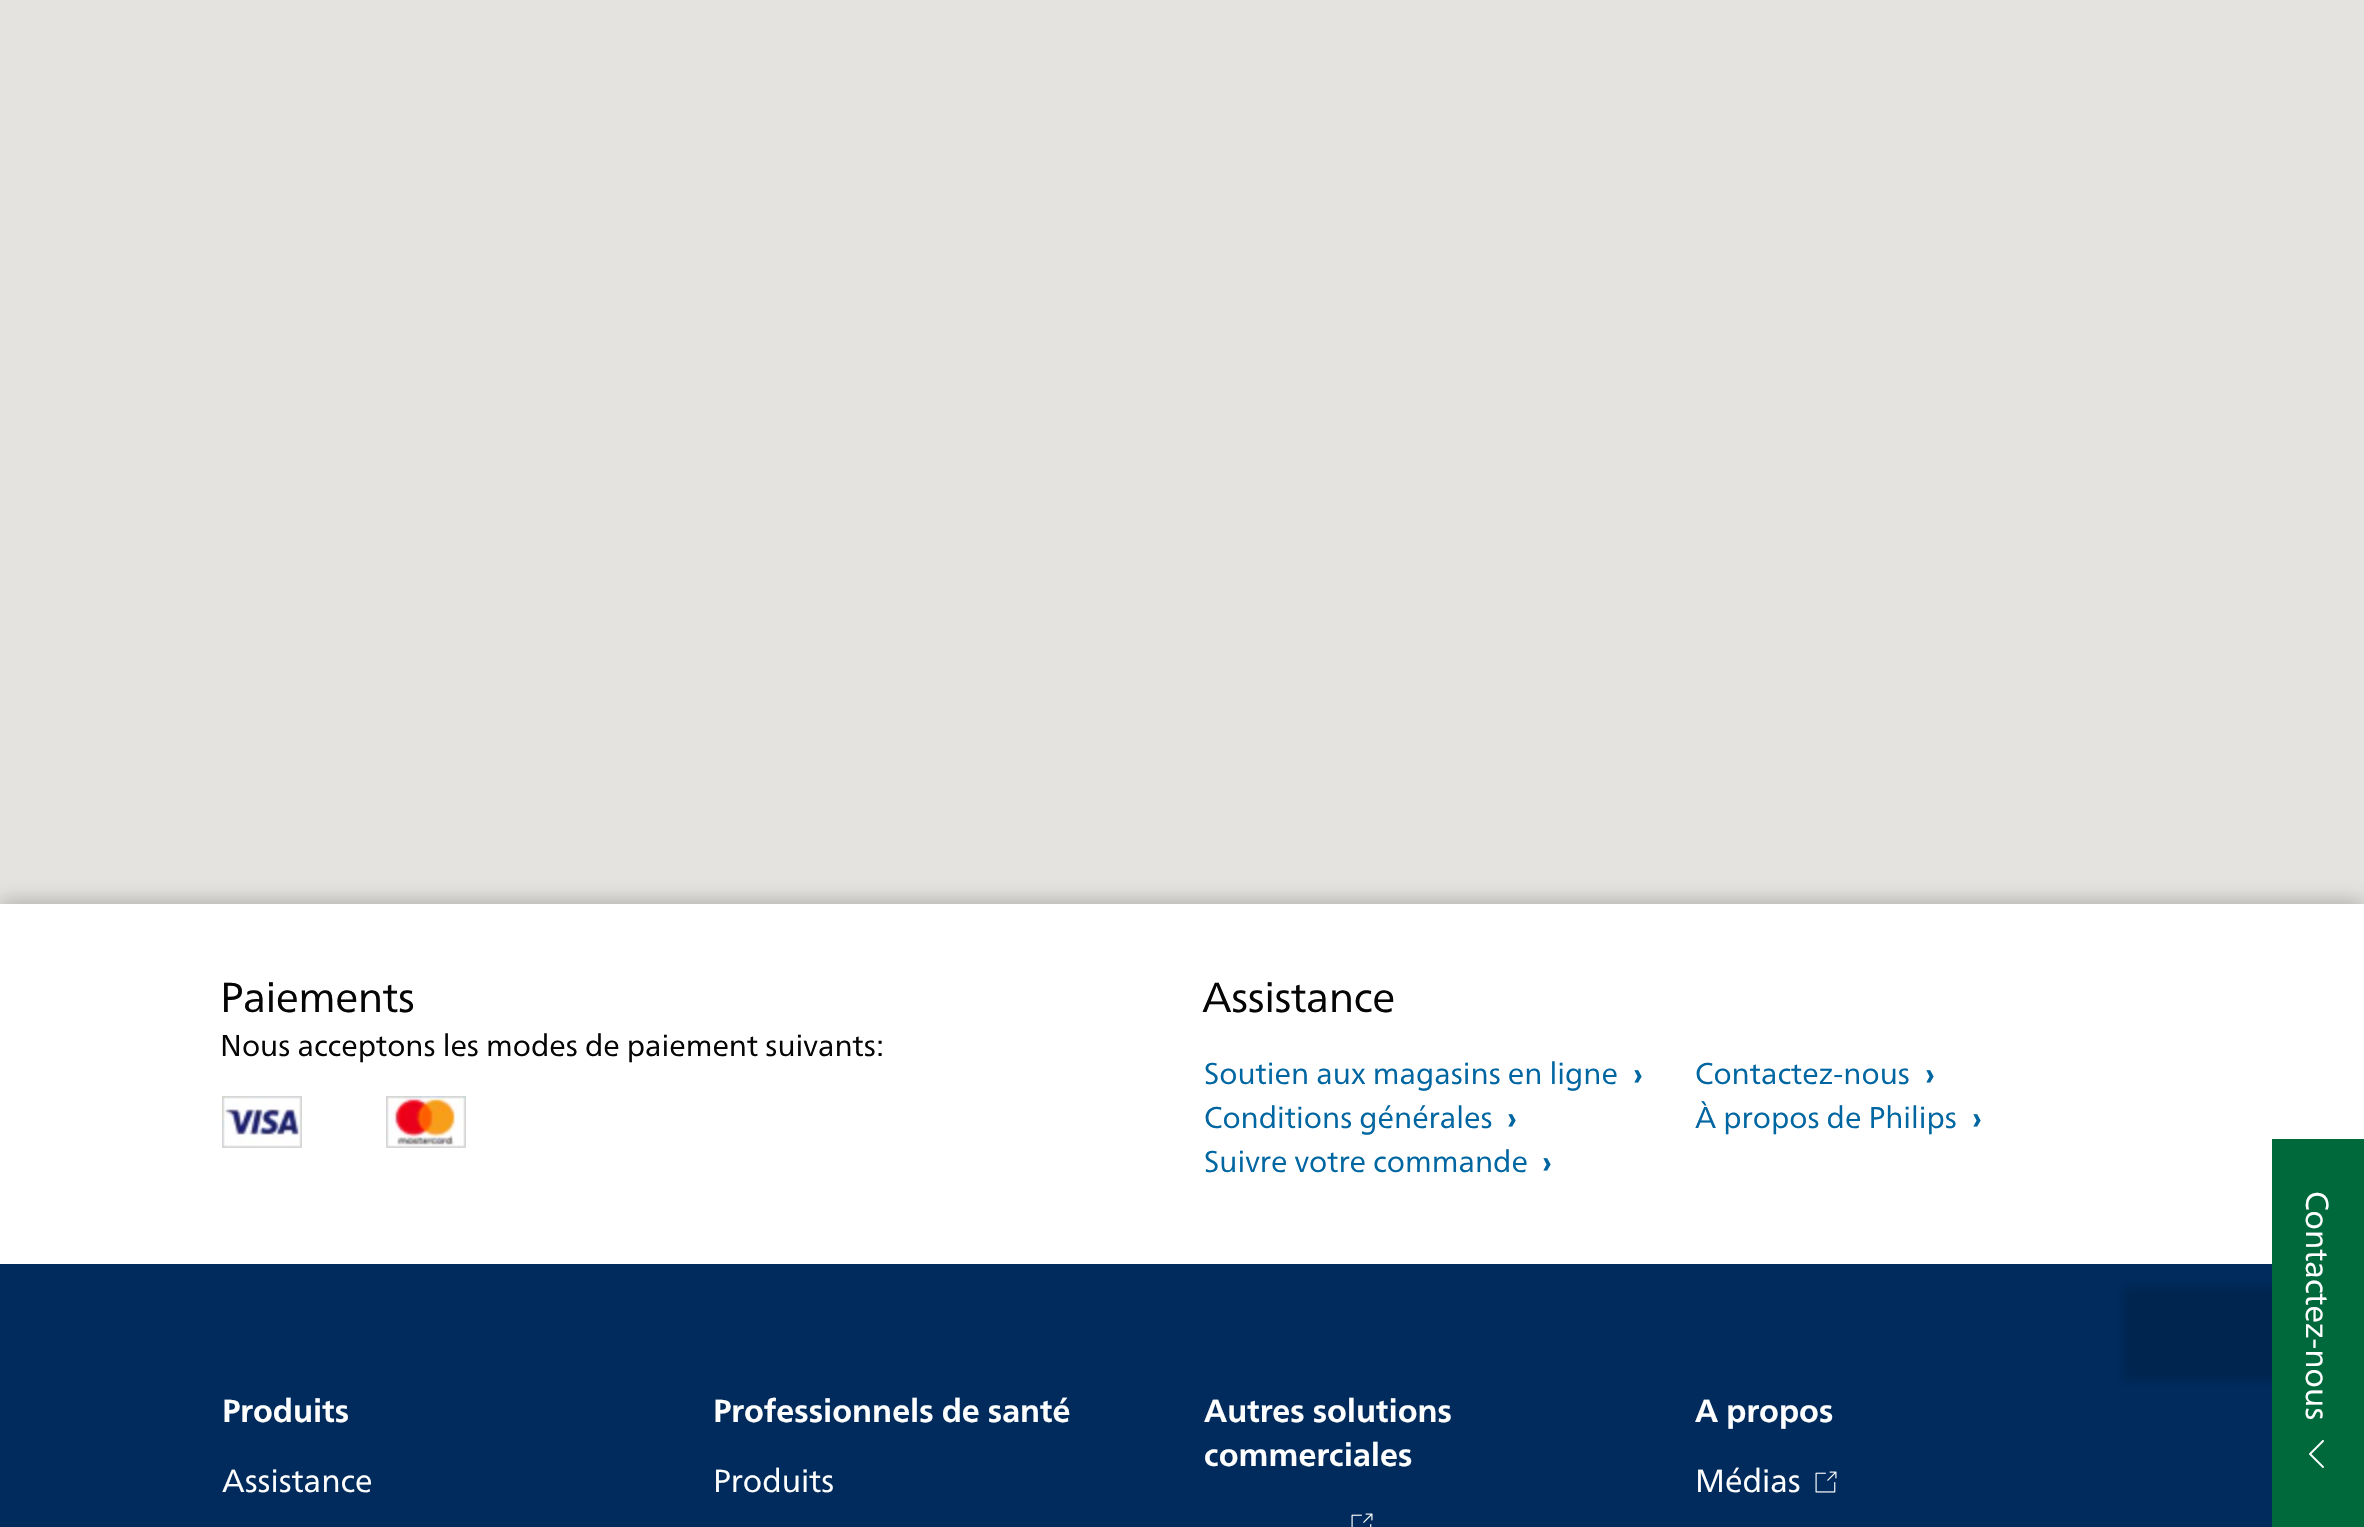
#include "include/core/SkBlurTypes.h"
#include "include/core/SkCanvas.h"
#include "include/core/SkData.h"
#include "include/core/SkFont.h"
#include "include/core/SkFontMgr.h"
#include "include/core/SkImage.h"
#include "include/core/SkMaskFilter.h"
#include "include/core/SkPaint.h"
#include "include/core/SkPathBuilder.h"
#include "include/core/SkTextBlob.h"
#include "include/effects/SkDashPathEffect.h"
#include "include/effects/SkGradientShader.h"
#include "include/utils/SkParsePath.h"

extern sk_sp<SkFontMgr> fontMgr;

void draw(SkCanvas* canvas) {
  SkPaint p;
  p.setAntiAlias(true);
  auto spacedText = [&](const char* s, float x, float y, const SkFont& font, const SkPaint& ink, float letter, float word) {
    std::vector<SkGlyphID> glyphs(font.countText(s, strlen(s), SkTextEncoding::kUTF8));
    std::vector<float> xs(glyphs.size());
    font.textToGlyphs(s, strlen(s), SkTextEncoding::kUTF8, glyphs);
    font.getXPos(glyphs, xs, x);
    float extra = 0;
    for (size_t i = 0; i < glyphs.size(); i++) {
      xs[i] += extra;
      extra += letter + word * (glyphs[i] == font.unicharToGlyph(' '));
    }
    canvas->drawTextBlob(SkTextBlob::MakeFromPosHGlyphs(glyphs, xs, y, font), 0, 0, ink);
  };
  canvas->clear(SK_ColorWHITE);
  p.setColor(SkColorSetRGB(229, 227, 223));
  canvas->drawRect(SkRect::MakeLTRB(0, 0, 2364, 904), p);
  canvas->save();
  canvas->clipRect(SkRect::MakeLTRB(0, 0, 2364, 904));
  p.setColor(SkColorSetARGB(102, 0, 0, 0));
  p.setMaskFilter(SkMaskFilter::MakeBlur(kNormal_SkBlurStyle, 10));
  canvas->drawRect(SkRect::MakeLTRB(0, 904, 2364, 914), p);
  p.setMaskFilter(nullptr);
  canvas->restore();
  canvas->drawImageRect(SkImages::DeferredFromEncodedData(SkData::MakeFromFileName("images/1.png")), SkRect::MakeLTRB(222, 1096, 302, 1148), SkSamplingOptions());
  canvas->drawImageRect(SkImages::DeferredFromEncodedData(SkData::MakeFromFileName("images/2.png")), SkRect::MakeLTRB(386, 1096, 466, 1148), SkSamplingOptions());
  p.setColor(SkColorSetRGB(0, 43, 92));
  canvas->drawRect(SkRect::MakeLTRB(0, 1264, 2272, 1527), p);
  p.setColor(SkColorSetARGB(38, 0, 0, 0));
  p.setMaskFilter(SkMaskFilter::MakeBlur(kNormal_SkBlurStyle, 5));
  canvas->drawRect(SkRect::MakeLTRB(2124, 1288, 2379, 1380), p);
  p.setMaskFilter(nullptr);
  p.setColor(SkColorSetRGB(0, 105, 60));
  canvas->drawRect(SkRect::MakeLTRB(2272, 1139, 2364, 1527), p);
  canvas->drawImageRect(SkImages::DeferredFromEncodedData(SkData::MakeFromFileName("images/3.png")), SkRect::MakeLTRB(2309, 1440, 2324, 1468), SkSamplingOptions());
  canvas->drawImageRect(SkImages::DeferredFromEncodedData(SkData::MakeFromFileName("images/4.png")), SkRect::MakeLTRB(1351, 1513, 1373, 1527), SkSamplingOptions());
  canvas->drawImageRect(SkImages::DeferredFromEncodedData(SkData::MakeFromFileName("images/5.png")), SkRect::MakeLTRB(1815, 1471, 1837, 1493), SkSamplingOptions());
  SkFont font1(fontMgr->matchFamilyStyle("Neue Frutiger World", SkFontStyle::Normal()), 42);
  font1.setSubpixel(true);
  p.setColor(SkColorSetRGB(5, 5, 5));
  spacedText("Paiements", 220, 1012, font1, p, -0.5f, 0);
  SkFont font2(fontMgr->matchFamilyStyle("Neue Frutiger World", SkFontStyle::Normal()), 30);
  font2.setSubpixel(true);
  canvas->drawString("Nous acceptons les modes de paiement suivants:", 220, 1056, font2, p);
  spacedText("Assistance", 1202, 1012, font1, p, -0.5f, 0);
  p.setColor(SkColorSetRGB(0, 102, 161));
  canvas->drawString("Soutien aux magasins en ligne", 1204, 1084, font2, p);
  SkFont font3(fontMgr->matchFamilyStyle("Neue Frutiger World", SkFontStyle::Bold()), 30);
  font3.setSubpixel(true);
  canvas->drawString("›", 1633, 1084, font3, p);
  canvas->drawString("Conditions générales", 1204, 1128, font2, p);
  canvas->drawString("›", 1507, 1128, font3, p);
  canvas->drawString("Suivre votre commande", 1204, 1172, font2, p);
  canvas->drawString("›", 1542, 1172, font3, p);
  canvas->drawString("Contactez-nous", 1695, 1084, font2, p);
  canvas->drawString("›", 1925, 1084, font3, p);
  canvas->drawString("À propos de Philips", 1695, 1128, font2, p);
  canvas->drawString("›", 1972, 1128, font3, p);
  SkFont font4(fontMgr->matchFamilyStyle("Neue Frutiger World", SkFontStyle::Normal()), 32);
  font4.setSubpixel(true);
  p.setColor(SK_ColorWHITE);
  canvas->save();
  canvas->rotate(90, 2306, 1191);
  canvas->drawString("Contactez-nous", 2306, 1191, font4, p);
  canvas->restore();
  SkFont font5(fontMgr->matchFamilyStyle("Neue Frutiger World", SkFontStyle::Bold()), 32);
  font5.setSubpixel(true);
  canvas->drawString("Produits", 222, 1422, font5, p);
  canvas->drawString("Assistance", 222, 1492, font4, p);
  canvas->drawString("Professionnels de santé", 713, 1422, font5, p);
  canvas->drawString("Produits", 713, 1492, font4, p);
  canvas->drawString("Autres solutions", 1204, 1422, font5, p);
  canvas->drawString("commerciales", 1204, 1466, font5, p);
  canvas->drawString("A propos", 1695, 1422, font5, p);
  canvas->drawString("Médias", 1695, 1492, font4, p);
}
